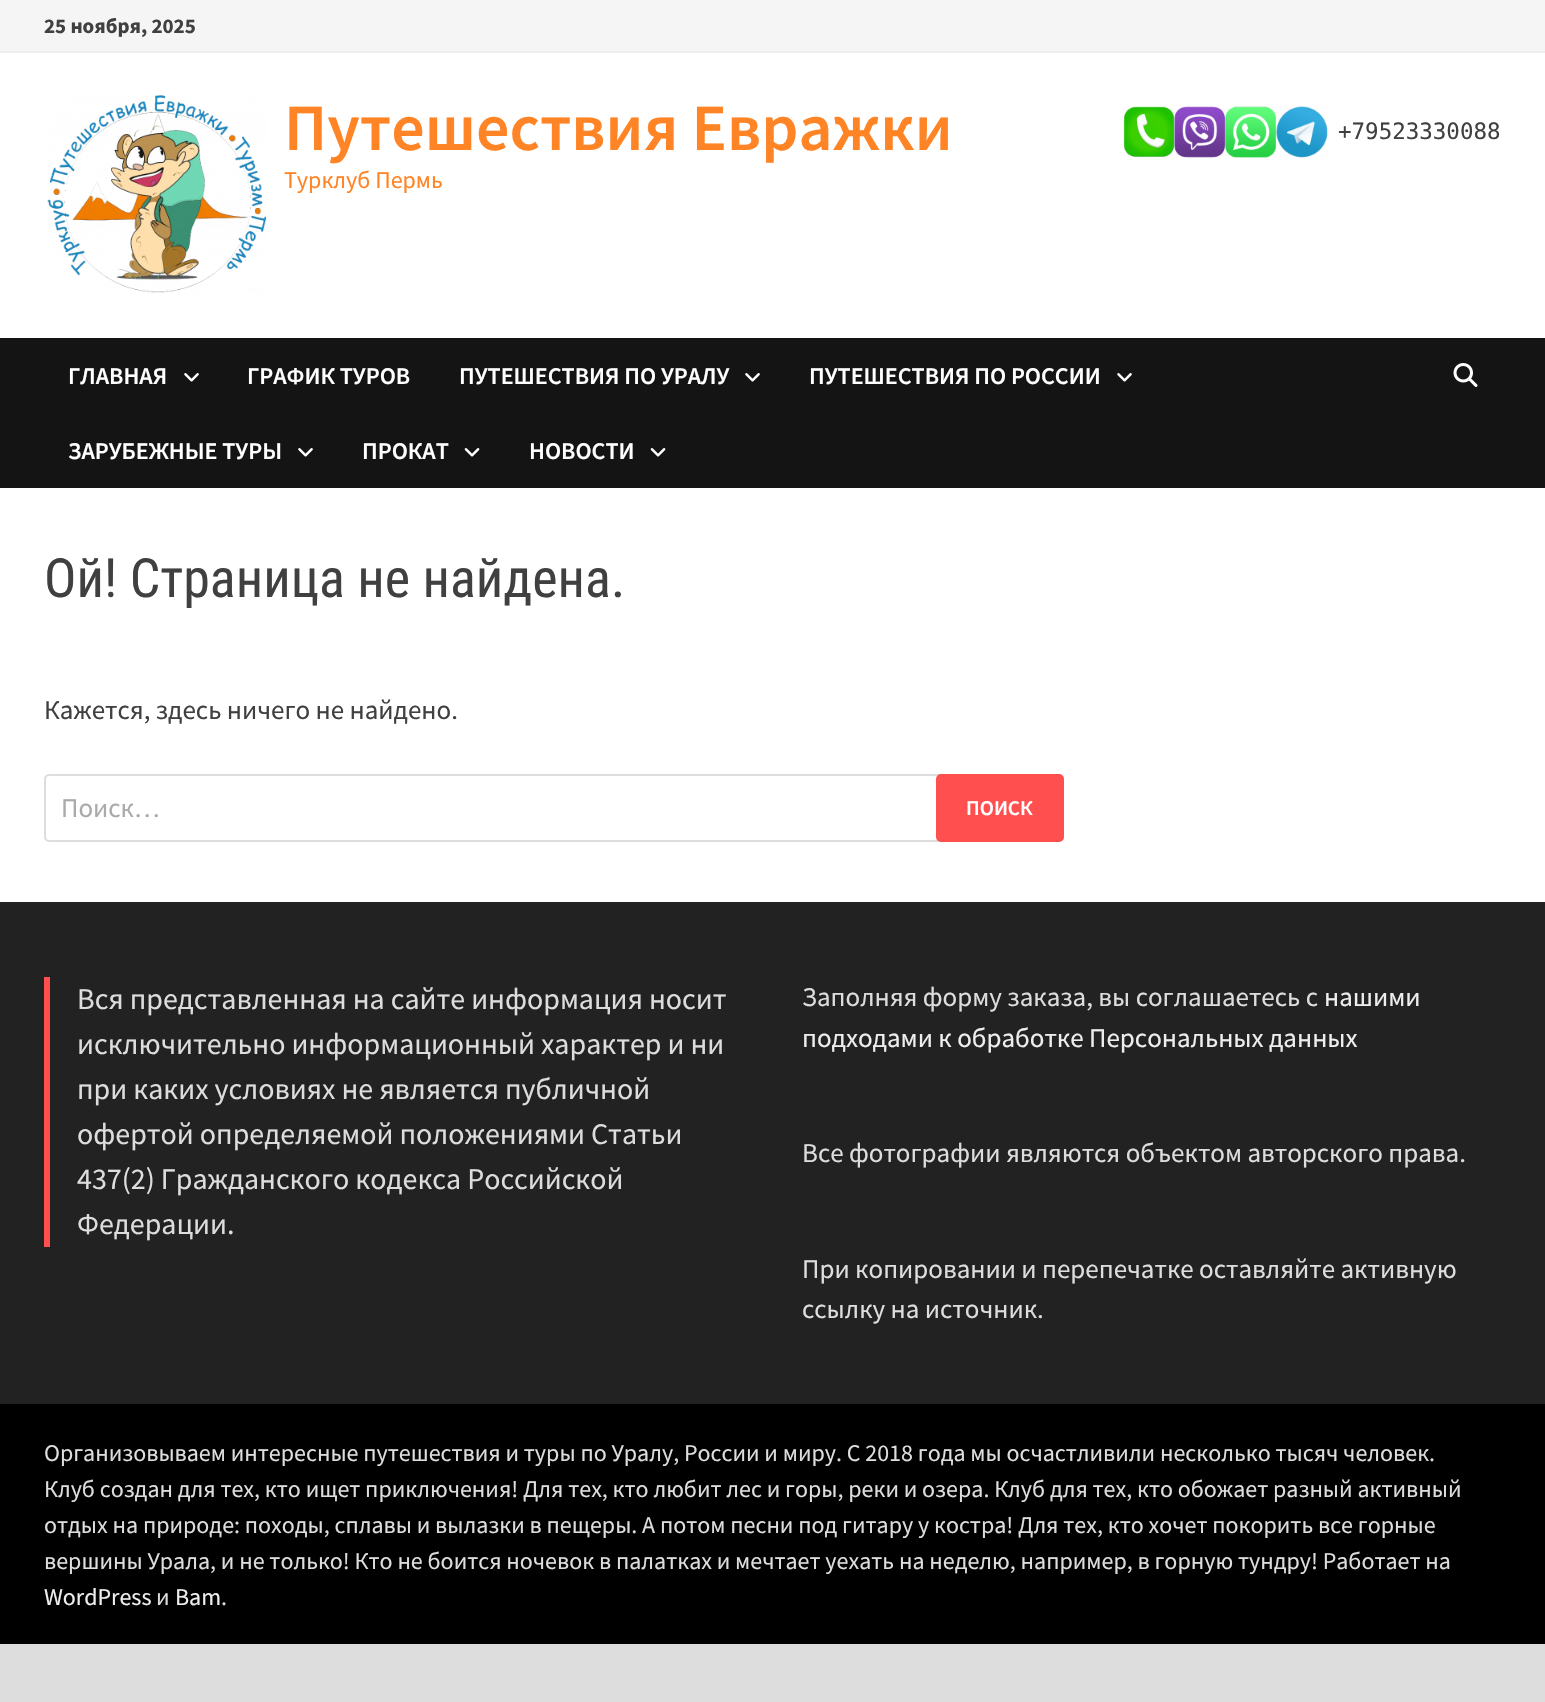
#include "include/core/SkBlurTypes.h"
#include "include/core/SkCanvas.h"
#include "include/core/SkData.h"
#include "include/core/SkFont.h"
#include "include/core/SkFontMgr.h"
#include "include/core/SkImage.h"
#include "include/core/SkMaskFilter.h"
#include "include/core/SkPaint.h"
#include "include/core/SkPathBuilder.h"
#include "include/core/SkTextBlob.h"
#include "include/effects/SkDashPathEffect.h"
#include "include/effects/SkGradientShader.h"
#include "include/utils/SkParsePath.h"

extern sk_sp<SkFontMgr> fontMgr;

void draw(SkCanvas* canvas) {
  SkPaint p;
  p.setAntiAlias(true);
  canvas->clear(SkColorSetRGB(221, 221, 221));
  p.setColor(SK_ColorWHITE);
  canvas->drawRect(SkRect::MakeLTRB(0, 53, 1545, 902), p);
  p.setColor(SkColorSetRGB(245, 245, 245));
  canvas->drawRect(SkRect::MakeLTRB(0, 0, 1545, 51), p);
  p.setColor(SkColorSetRGB(238, 238, 238));
  canvas->drawRect(SkRect::MakeLTRB(0, 51, 1545, 53), p);
  canvas->drawImageRect(SkImages::DeferredFromEncodedData(SkData::MakeFromFileName("images/1.png")), SkRect::MakeLTRB(47, 95, 267, 293), SkSamplingOptions());
  canvas->drawImageRect(SkImages::DeferredFromEncodedData(SkData::MakeFromFileName("images/2.png")), SkRect::MakeLTRB(1123, 106, 1328, 158), SkSamplingOptions());
  p.setColor(SkColorSetRGB(20, 20, 20));
  canvas->drawRect(SkRect::MakeLTRB(0, 338, 1545, 488), p);
  canvas->drawImageRect(SkImages::DeferredFromEncodedData(SkData::MakeFromFileName("images/3.png")), SkRect::MakeLTRB(184, 373, 199, 382), SkSamplingOptions());
  canvas->drawImageRect(SkImages::DeferredFromEncodedData(SkData::MakeFromFileName("images/3.png")), SkRect::MakeLTRB(745, 373, 760, 382), SkSamplingOptions());
  canvas->drawImageRect(SkImages::DeferredFromEncodedData(SkData::MakeFromFileName("images/3.png")), SkRect::MakeLTRB(1117, 373, 1132, 382), SkSamplingOptions());
  canvas->drawImageRect(SkImages::DeferredFromEncodedData(SkData::MakeFromFileName("images/3.png")), SkRect::MakeLTRB(298, 448, 313, 457), SkSamplingOptions());
  canvas->drawImageRect(SkImages::DeferredFromEncodedData(SkData::MakeFromFileName("images/4.png")), SkRect::MakeLTRB(464, 448, 480, 457), SkSamplingOptions());
  canvas->drawImageRect(SkImages::DeferredFromEncodedData(SkData::MakeFromFileName("images/4.png")), SkRect::MakeLTRB(650, 448, 666, 457), SkSamplingOptions());
  canvas->drawImageRect(SkImages::DeferredFromEncodedData(SkData::MakeFromFileName("images/5.png")), SkRect::MakeLTRB(1453, 363, 1478, 387), SkSamplingOptions());
  p.setStyle(SkPaint::kStroke_Style);
  p.setStrokeWidth(2);
  p.setColor(SkColorSetRGB(221, 221, 221));
  canvas->drawRoundRect(SkRect::MakeLTRB(45, 775, 1063, 841), 4, 4, p);
  p.setStyle(SkPaint::kFill_Style);
  p.setColor(SkColorSetRGB(255, 79, 79));
  canvas->drawRoundRect(SkRect::MakeLTRB(936, 774, 1064, 842), 5, 5, p);
  p.setColor(SkColorSetRGB(34, 34, 34));
  canvas->drawRect(SkRect::MakeLTRB(0, 902, 1545, 1404), p);
  p.setColor(SkColorSetRGB(255, 79, 79));
  canvas->drawRect(SkRect::MakeLTRB(44, 977, 50, 1247), p);
  p.setColor(SK_ColorBLACK);
  canvas->drawRect(SkRect::MakeLTRB(0, 1404, 1545, 1644), p);
  SkFont font1(fontMgr->matchFamilyStyle("Source Sans Pro", SkFontStyle::Bold()), 21);
  font1.setSubpixel(true);
  p.setColor(SkColorSetRGB(64, 64, 64));
  canvas->drawString("25 ноября, 2025", 44, 33, font1, p);
  SkFont font2(fontMgr->matchFamilyStyle("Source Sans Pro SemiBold", SkFontStyle(600, SkFontStyle::kNormal_Width, SkFontStyle::kUpright_Slant)), 66);
  font2.setSubpixel(true);
  p.setColor(SkColorSetRGB(255, 132, 38));
  canvas->drawString("Путешествия Евражки", 284, 150, font2, p);
  SkFont font3(fontMgr->matchFamilyStyle("Source Sans Pro", SkFontStyle::Normal()), 24);
  font3.setSubpixel(true);
  canvas->drawString("Турклуб Пермь", 284, 188, font3, p);
  SkFont font4(fontMgr->matchFamilyStyle("DejaVu Sans Mono", SkFontStyle::Normal()), 22.5f);
  font4.setSubpixel(true);
  p.setColor(SkColorSetRGB(64, 64, 64));
  canvas->drawString("+79523330088", 1338, 139, font4, p);
  SkFont font5(fontMgr->matchFamilyStyle("Source Sans Pro SemiBold", SkFontStyle(600, SkFontStyle::kNormal_Width, SkFontStyle::kUpright_Slant)), 24);
  font5.setSubpixel(true);
  p.setColor(SK_ColorWHITE);
  canvas->drawString("ГЛАВНАЯ", 68, 384, font5, p);
  canvas->drawString("ГРАФИК ТУРОВ", 247, 384, font5, p);
  canvas->drawString("ПУТЕШЕСТВИЯ ПО УРАЛУ", 459, 384, font5, p);
  canvas->drawString("ПУТЕШЕСТВИЯ ПО РОССИИ", 809, 384, font5, p);
  canvas->drawString("ЗАРУБЕЖНЫЕ ТУРЫ", 68, 459, font5, p);
  canvas->drawString("ПРОКАТ", 362, 459, font5, p);
  canvas->drawString("НОВОСТИ", 529, 459, font5, p);
  SkFont font6(fontMgr->matchFamilyStyle("Roboto Condensed", SkFontStyle::Normal()), 54);
  font6.setSubpixel(true);
  p.setColor(SkColorSetRGB(64, 64, 64));
  canvas->drawString("Ой! Страница не найдена.", 44, 597, font6, p);
  SkFont font7(fontMgr->matchFamilyStyle("Source Sans Pro", SkFontStyle::Normal()), 27);
  font7.setSubpixel(true);
  canvas->drawString("Кажется, здесь ничего не найдено.", 44, 719, font7, p);
  p.setColor(SkColorSetRGB(170, 170, 170));
  canvas->drawString("Поиск…", 61, 817, font7, p);
  SkFont font8(fontMgr->matchFamilyStyle("Source Sans Pro SemiBold", SkFontStyle(600, SkFontStyle::kNormal_Width, SkFontStyle::kUpright_Slant)), 21);
  font8.setSubpixel(true);
  p.setColor(SK_ColorWHITE);
  canvas->drawString("ПОИСК", 966, 815, font8, p);
  SkFont font9(fontMgr->matchFamilyStyle("Source Sans Pro", SkFontStyle::Normal()), 30);
  font9.setSubpixel(true);
  p.setColor(SkColorSetRGB(221, 221, 221));
  canvas->drawString("Вся представленная на сайте информация носит", 77, 1009, font9, p);
  canvas->drawString("исключительно информационный характер и ни", 77, 1054, font9, p);
  canvas->drawString("при каких условиях не является публичной", 77, 1099, font9, p);
  canvas->drawString("офертой определяемой положениями Статьи", 77, 1144, font9, p);
  canvas->drawString("437(2) Гражданского кодекса Российской", 77, 1189, font9, p);
  canvas->drawString("Федерации.", 77, 1234, font9, p);
  canvas->drawString("Заполняя форму заказа, вы соглашаетесь с", 802, 1006, font7, p);
  p.setColor(SkColorSetRGB(238, 238, 238));
  canvas->drawString("нашими", 1324, 1006, font7, p);
  canvas->drawString("подходами к обработке Персональных данных", 802, 1047, font7, p);
  p.setColor(SkColorSetRGB(221, 221, 221));
  canvas->drawString("Все фотографии являются объектом авторского права.", 802, 1162, font7, p);
  canvas->drawString("При копировании и перепечатке оставляйте активную", 802, 1278, font7, p);
  canvas->drawString("ссылку на источник.", 802, 1318, font7, p);
  canvas->drawString("Организовываем интересные путешествия и туры по Уралу, России и миру. С 2018 года мы осчастливили несколько тысяч человек.", 44, 1461, font3, p);
  canvas->drawString("Клуб создан для тех, кто ищет приключения! Для тех, кто любит лес и горы, реки и озера. Клуб для тех, кто обожает разный активный", 44, 1497, font3, p);
  canvas->drawString("отдых на природе: походы, сплавы и вылазки в пещеры. А потом песни под гитару у костра! Для тех, кто хочет покорить все горные", 44, 1533, font3, p);
  canvas->drawString("вершины Урала, и не только! Кто не боится ночевок в палатках и мечтает уехать на неделю, например, в горную тундру! Работает на", 44, 1569, font3, p);
  p.setColor(SkColorSetRGB(238, 238, 238));
  canvas->drawString("WordPress", 44, 1605, font3, p);
  p.setColor(SkColorSetRGB(221, 221, 221));
  canvas->drawString("и", 156, 1605, font3, p);
  p.setColor(SkColorSetRGB(238, 238, 238));
  canvas->drawString("Bam", 175, 1605, font3, p);
  p.setColor(SkColorSetRGB(221, 221, 221));
  canvas->drawString(".", 221, 1605, font3, p);
}
